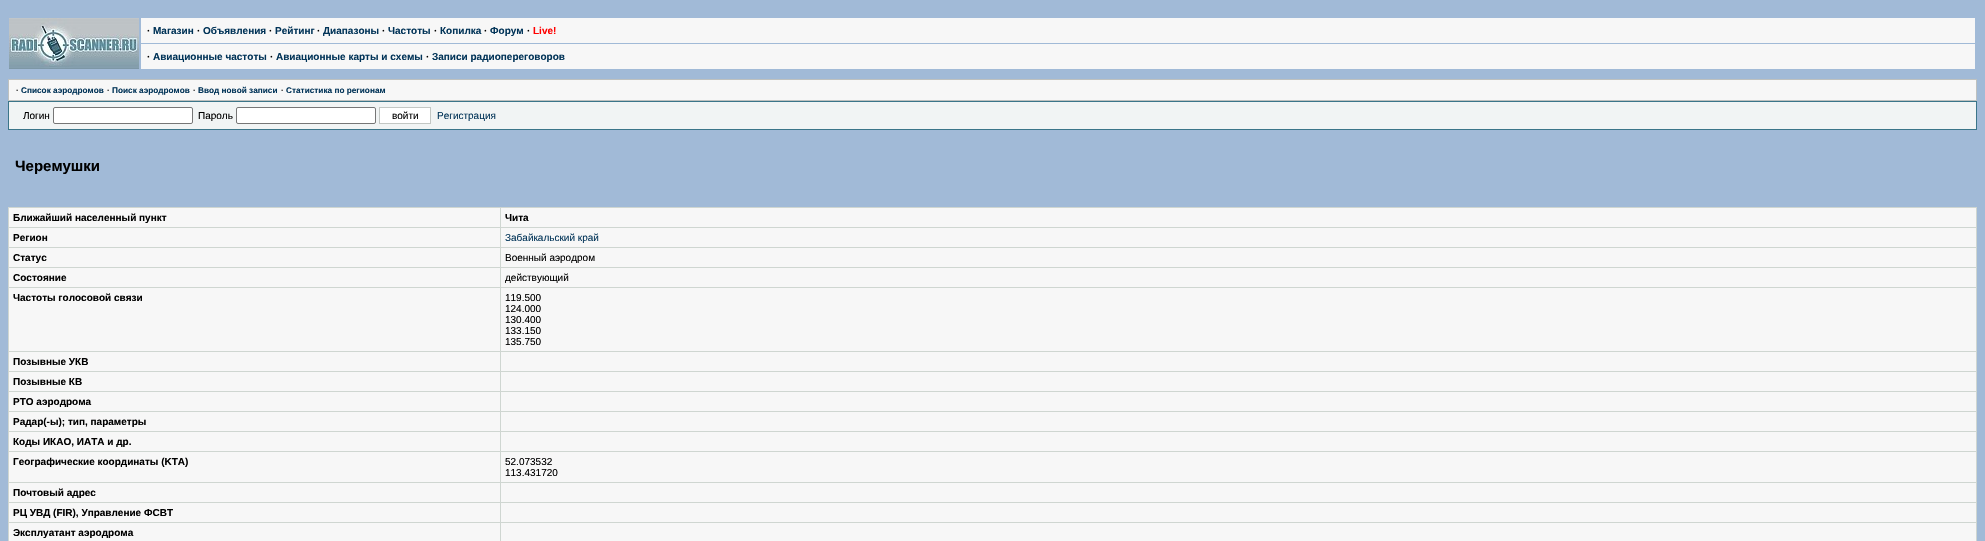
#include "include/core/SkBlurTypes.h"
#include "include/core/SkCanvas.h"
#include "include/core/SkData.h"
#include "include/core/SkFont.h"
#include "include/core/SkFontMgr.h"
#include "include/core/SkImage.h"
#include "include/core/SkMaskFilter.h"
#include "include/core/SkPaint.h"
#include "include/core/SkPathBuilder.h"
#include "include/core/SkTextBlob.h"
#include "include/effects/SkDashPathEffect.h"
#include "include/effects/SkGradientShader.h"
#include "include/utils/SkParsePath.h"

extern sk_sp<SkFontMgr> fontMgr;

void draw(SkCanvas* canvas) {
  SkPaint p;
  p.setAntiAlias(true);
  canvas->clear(SkColorSetRGB(161, 186, 215));
  canvas->drawImageRect(SkImages::DeferredFromEncodedData(SkData::MakeFromFileName("images/1.png")), SkRect::MakeLTRB(9, 18, 139, 69), SkSamplingOptions());
  p.setColor(SkColorSetRGB(247, 247, 247));
  canvas->drawRect(SkRect::MakeLTRB(141, 18, 1975, 43), p);
  canvas->drawRect(SkRect::MakeLTRB(141, 44, 1975, 69), p);
  canvas->drawRect(SkRect::MakeLTRB(9, 80, 1976, 100), p);
  p.setColor(SkColorSetRGB(190, 193, 191));
  canvas->drawRect(SkRect::MakeLTRB(8, 79, 1977, 80), p);
  canvas->drawRect(SkRect::MakeLTRB(1976, 79, 1977, 101), p);
  canvas->drawRect(SkRect::MakeLTRB(8, 100, 1977, 101), p);
  canvas->drawRect(SkRect::MakeLTRB(8, 79, 9, 101), p);
  p.setColor(SkColorSetRGB(59, 117, 137));
  canvas->drawRect(SkRect::MakeLTRB(8, 101, 1977, 102), p);
  canvas->drawRect(SkRect::MakeLTRB(1976, 101, 1977, 130), p);
  canvas->drawRect(SkRect::MakeLTRB(8, 129, 1977, 130), p);
  canvas->drawRect(SkRect::MakeLTRB(8, 101, 9, 130), p);
  p.setColor(SkColorSetRGB(241, 244, 244));
  canvas->drawRect(SkRect::MakeLTRB(9, 102, 1976, 129), p);
  p.setColor(SK_ColorWHITE);
  canvas->drawRoundRect(SkRect::MakeLTRB(53.5f, 107.5f, 192.5f, 123.5f), 1.5f, 1.5f, p);
  p.setStyle(SkPaint::kStroke_Style);
  p.setStrokeWidth(1);
  p.setColor(SkColorSetRGB(118, 118, 118));
  canvas->drawRoundRect(SkRect::MakeLTRB(53.5f, 107.5f, 192.5f, 123.5f), 1.5f, 1.5f, p);
  p.setStyle(SkPaint::kFill_Style);
  p.setColor(SK_ColorWHITE);
  canvas->drawRoundRect(SkRect::MakeLTRB(236.5f, 107.5f, 375.5f, 123.5f), 1.5f, 1.5f, p);
  p.setStyle(SkPaint::kStroke_Style);
  p.setColor(SkColorSetRGB(118, 118, 118));
  canvas->drawRoundRect(SkRect::MakeLTRB(236.5f, 107.5f, 375.5f, 123.5f), 1.5f, 1.5f, p);
  p.setStyle(SkPaint::kFill_Style);
  p.setColor(SK_ColorWHITE);
  canvas->drawRect(SkRect::MakeLTRB(379.5f, 107.5f, 430.5f, 123.5f), p);
  p.setStyle(SkPaint::kStroke_Style);
  p.setColor(SkColorSetRGB(195, 199, 196));
  canvas->drawRect(SkRect::MakeLTRB(379.5f, 107.5f, 430.5f, 123.5f), p);
  p.setStyle(SkPaint::kFill_Style);
  p.setColor(SkColorSetRGB(207, 214, 209));
  canvas->drawRect(SkRect::MakeLTRB(8, 207, 1977, 208), p);
  canvas->drawRect(SkRect::MakeLTRB(1976, 207, 1977, 541), p);
  canvas->drawRect(SkRect::MakeLTRB(8, 207, 9, 541), p);
  p.setColor(SkColorSetRGB(247, 247, 247));
  canvas->drawRect(SkRect::MakeLTRB(9, 208, 500, 227), p);
  canvas->drawRect(SkRect::MakeLTRB(501, 208, 1976, 227), p);
  p.setColor(SkColorSetRGB(207, 214, 209));
  canvas->drawRect(SkRect::MakeLTRB(500, 227, 1977, 228), p);
  canvas->drawRect(SkRect::MakeLTRB(500, 247, 1977, 248), p);
  canvas->drawRect(SkRect::MakeLTRB(500, 267, 1977, 268), p);
  canvas->drawRect(SkRect::MakeLTRB(500, 287, 1977, 288), p);
  canvas->drawRect(SkRect::MakeLTRB(500, 351, 1977, 352), p);
  canvas->drawRect(SkRect::MakeLTRB(500, 371, 1977, 372), p);
  canvas->drawRect(SkRect::MakeLTRB(500, 391, 1977, 392), p);
  canvas->drawRect(SkRect::MakeLTRB(500, 411, 1977, 412), p);
  canvas->drawRect(SkRect::MakeLTRB(500, 431, 1977, 432), p);
  canvas->drawRect(SkRect::MakeLTRB(500, 451, 1977, 452), p);
  canvas->drawRect(SkRect::MakeLTRB(500, 482, 1977, 483), p);
  canvas->drawRect(SkRect::MakeLTRB(500, 502, 1977, 503), p);
  canvas->drawRect(SkRect::MakeLTRB(500, 522, 1977, 523), p);
  canvas->drawRect(SkRect::MakeLTRB(500, 522, 501, 541), p);
  canvas->drawRect(SkRect::MakeLTRB(8, 522, 501, 523), p);
  canvas->drawRect(SkRect::MakeLTRB(500, 502, 501, 523), p);
  canvas->drawRect(SkRect::MakeLTRB(8, 502, 501, 503), p);
  canvas->drawRect(SkRect::MakeLTRB(500, 482, 501, 503), p);
  canvas->drawRect(SkRect::MakeLTRB(8, 482, 501, 483), p);
  canvas->drawRect(SkRect::MakeLTRB(500, 451, 501, 483), p);
  canvas->drawRect(SkRect::MakeLTRB(8, 451, 501, 452), p);
  canvas->drawRect(SkRect::MakeLTRB(500, 431, 501, 452), p);
  canvas->drawRect(SkRect::MakeLTRB(8, 431, 501, 432), p);
  canvas->drawRect(SkRect::MakeLTRB(500, 411, 501, 432), p);
  canvas->drawRect(SkRect::MakeLTRB(8, 411, 501, 412), p);
  canvas->drawRect(SkRect::MakeLTRB(500, 391, 501, 412), p);
  canvas->drawRect(SkRect::MakeLTRB(8, 391, 501, 392), p);
  canvas->drawRect(SkRect::MakeLTRB(500, 371, 501, 392), p);
  canvas->drawRect(SkRect::MakeLTRB(8, 371, 501, 372), p);
  canvas->drawRect(SkRect::MakeLTRB(500, 351, 501, 372), p);
  canvas->drawRect(SkRect::MakeLTRB(8, 351, 501, 352), p);
  canvas->drawRect(SkRect::MakeLTRB(500, 287, 501, 352), p);
  canvas->drawRect(SkRect::MakeLTRB(8, 287, 501, 288), p);
  canvas->drawRect(SkRect::MakeLTRB(500, 267, 501, 288), p);
  canvas->drawRect(SkRect::MakeLTRB(8, 267, 501, 268), p);
  canvas->drawRect(SkRect::MakeLTRB(500, 247, 501, 268), p);
  canvas->drawRect(SkRect::MakeLTRB(8, 247, 501, 248), p);
  canvas->drawRect(SkRect::MakeLTRB(500, 227, 501, 248), p);
  canvas->drawRect(SkRect::MakeLTRB(8, 227, 501, 228), p);
  canvas->drawRect(SkRect::MakeLTRB(500, 207, 501, 228), p);
  p.setColor(SkColorSetRGB(247, 247, 247));
  canvas->drawRect(SkRect::MakeLTRB(9, 228, 500, 247), p);
  canvas->drawRect(SkRect::MakeLTRB(501, 228, 1976, 247), p);
  canvas->drawRect(SkRect::MakeLTRB(9, 248, 500, 267), p);
  canvas->drawRect(SkRect::MakeLTRB(501, 248, 1976, 267), p);
  canvas->drawRect(SkRect::MakeLTRB(9, 268, 500, 287), p);
  canvas->drawRect(SkRect::MakeLTRB(501, 268, 1976, 287), p);
  canvas->drawRect(SkRect::MakeLTRB(9, 288, 500, 351), p);
  canvas->drawRect(SkRect::MakeLTRB(501, 288, 1976, 351), p);
  canvas->drawRect(SkRect::MakeLTRB(9, 352, 500, 371), p);
  canvas->drawRect(SkRect::MakeLTRB(501, 352, 1976, 371), p);
  canvas->drawRect(SkRect::MakeLTRB(9, 372, 500, 391), p);
  canvas->drawRect(SkRect::MakeLTRB(501, 372, 1976, 391), p);
  canvas->drawRect(SkRect::MakeLTRB(9, 392, 500, 411), p);
  canvas->drawRect(SkRect::MakeLTRB(501, 392, 1976, 411), p);
  canvas->drawRect(SkRect::MakeLTRB(9, 412, 500, 431), p);
  canvas->drawRect(SkRect::MakeLTRB(501, 412, 1976, 431), p);
  canvas->drawRect(SkRect::MakeLTRB(9, 432, 500, 451), p);
  canvas->drawRect(SkRect::MakeLTRB(501, 432, 1976, 451), p);
  canvas->drawRect(SkRect::MakeLTRB(9, 452, 500, 482), p);
  canvas->drawRect(SkRect::MakeLTRB(501, 452, 1976, 482), p);
  canvas->drawRect(SkRect::MakeLTRB(9, 483, 500, 502), p);
  canvas->drawRect(SkRect::MakeLTRB(501, 483, 1976, 502), p);
  canvas->drawRect(SkRect::MakeLTRB(9, 503, 500, 522), p);
  canvas->drawRect(SkRect::MakeLTRB(501, 503, 1976, 522), p);
  canvas->drawRect(SkRect::MakeLTRB(9, 523, 500, 541), p);
  canvas->drawRect(SkRect::MakeLTRB(501, 523, 1976, 541), p);
  SkFont font1(fontMgr->matchFamilyStyle("Liberation Sans", SkFontStyle::Bold()), 10);
  font1.setSubpixel(true);
  p.setColor(SK_ColorBLACK);
  canvas->drawString("·", 147, 34, font1, p);
  p.setColor(SkColorSetRGB(2, 52, 88));
  canvas->drawString("Магазин", 153, 34, font1, p);
  p.setColor(SK_ColorBLACK);
  canvas->drawString("·", 197, 34, font1, p);
  p.setColor(SkColorSetRGB(2, 52, 88));
  canvas->drawString("Объявления", 203, 34, font1, p);
  p.setColor(SK_ColorBLACK);
  canvas->drawString("·", 269, 34, font1, p);
  p.setColor(SkColorSetRGB(2, 52, 88));
  canvas->drawString("Рейтинг", 275, 34, font1, p);
  p.setColor(SK_ColorBLACK);
  canvas->drawString("·", 317, 34, font1, p);
  p.setColor(SkColorSetRGB(2, 52, 88));
  canvas->drawString("Диапазоны", 323, 34, font1, p);
  p.setColor(SK_ColorBLACK);
  canvas->drawString("·", 382, 34, font1, p);
  p.setColor(SkColorSetRGB(2, 52, 88));
  canvas->drawString("Частоты", 388, 34, font1, p);
  p.setColor(SK_ColorBLACK);
  canvas->drawString("·", 434, 34, font1, p);
  p.setColor(SkColorSetRGB(2, 52, 88));
  canvas->drawString("Копилка", 440, 34, font1, p);
  p.setColor(SK_ColorBLACK);
  canvas->drawString("·", 484, 34, font1, p);
  p.setColor(SkColorSetRGB(2, 52, 88));
  canvas->drawString("Форум", 490, 34, font1, p);
  p.setColor(SK_ColorBLACK);
  canvas->drawString("·", 527, 34, font1, p);
  p.setColor(SkColorSetRGB(255, 0, 0));
  canvas->drawString("Live!", 533, 34, font1, p);
  p.setColor(SK_ColorBLACK);
  canvas->drawString("·", 147, 60, font1, p);
  p.setColor(SkColorSetRGB(2, 52, 88));
  canvas->drawString("Авиационные частоты", 153, 60, font1, p);
  p.setColor(SK_ColorBLACK);
  canvas->drawString("·", 270, 60, font1, p);
  p.setColor(SkColorSetRGB(2, 52, 88));
  canvas->drawString("Авиационные карты и схемы", 276, 60, font1, p);
  p.setColor(SK_ColorBLACK);
  canvas->drawString("·", 426, 60, font1, p);
  p.setColor(SkColorSetRGB(2, 52, 88));
  canvas->drawString("Записи радиопереговоров", 432, 60, font1, p);
  SkFont font2(fontMgr->matchFamilyStyle("Liberation Sans", SkFontStyle::Bold()), 8.25f);
  font2.setSubpixel(true);
  p.setColor(SK_ColorBLACK);
  canvas->drawString("·", 16, 93, font2, p);
  p.setColor(SkColorSetRGB(2, 52, 88));
  canvas->drawString("Список аэродромов", 21, 93, font2, p);
  p.setColor(SK_ColorBLACK);
  canvas->drawString("·", 107, 93, font2, p);
  p.setColor(SkColorSetRGB(2, 52, 88));
  canvas->drawString("Поиск аэродромов", 112, 93, font2, p);
  p.setColor(SK_ColorBLACK);
  canvas->drawString("·", 193, 93, font2, p);
  p.setColor(SkColorSetRGB(2, 52, 88));
  canvas->drawString("Ввод новой записи", 198, 93, font2, p);
  p.setColor(SK_ColorBLACK);
  canvas->drawString("·", 281, 93, font2, p);
  p.setColor(SkColorSetRGB(2, 52, 88));
  canvas->drawString("Статистика по регионам", 286, 93, font2, p);
  SkFont font3(fontMgr->matchFamilyStyle("Liberation Sans", SkFontStyle::Normal()), 10);
  font3.setSubpixel(true);
  p.setColor(SK_ColorBLACK);
  canvas->drawString("Логин", 23, 119, font3, p);
  canvas->drawString("Пароль", 198, 119, font3, p);
  canvas->drawString("войти", 392, 119, font3, p);
  p.setColor(SkColorSetRGB(2, 52, 88));
  canvas->drawString("Регистрация", 437, 119, font3, p);
  SkFont font4(fontMgr->matchFamilyStyle("Liberation Sans", SkFontStyle::Bold()), 15);
  font4.setSubpixel(true);
  p.setColor(SK_ColorBLACK);
  canvas->drawString("Черемушки", 15, 171, font4, p);
  canvas->drawString("Ближайший населенный пункт", 13, 221, font1, p);
  canvas->drawString("Чита", 505, 221, font1, p);
  canvas->drawString("Регион", 13, 241, font1, p);
  p.setColor(SkColorSetRGB(2, 52, 88));
  canvas->drawString("Забайкальский край", 505, 241, font3, p);
  p.setColor(SK_ColorBLACK);
  canvas->drawString("Статус", 13, 261, font1, p);
  canvas->drawString("Военный аэродром", 505, 261, font3, p);
  canvas->drawString("Состояние", 13, 281, font1, p);
  canvas->drawString("действующий", 505, 281, font3, p);
  canvas->drawString("Частоты голосовой связи", 13, 301, font1, p);
  canvas->drawString("119.500", 505, 301, font3, p);
  canvas->drawString("124.000", 505, 312, font3, p);
  canvas->drawString("130.400", 505, 323, font3, p);
  canvas->drawString("133.150", 505, 334, font3, p);
  canvas->drawString("135.750", 505, 345, font3, p);
  canvas->drawString("Позывные УКВ", 13, 365, font1, p);
  canvas->drawString("Позывные КВ", 13, 385, font1, p);
  canvas->drawString("РТО аэродрома", 13, 405, font1, p);
  canvas->drawString("Радар(-ы); тип, параметры", 13, 425, font1, p);
  canvas->drawString("Коды ИКАО, ИАТА и др.", 13, 445, font1, p);
  canvas->drawString("Географические координаты (KTA)", 13, 465, font1, p);
  canvas->drawString("52.073532", 505, 465, font3, p);
  canvas->drawString("113.431720", 505, 476, font3, p);
  canvas->drawString("Почтовый адрес", 13, 496, font1, p);
  canvas->drawString("РЦ УВД (FIR), Управление ФСВТ", 13, 516, font1, p);
  canvas->drawString("Эксплуатант аэродрома", 13, 536, font1, p);
}
